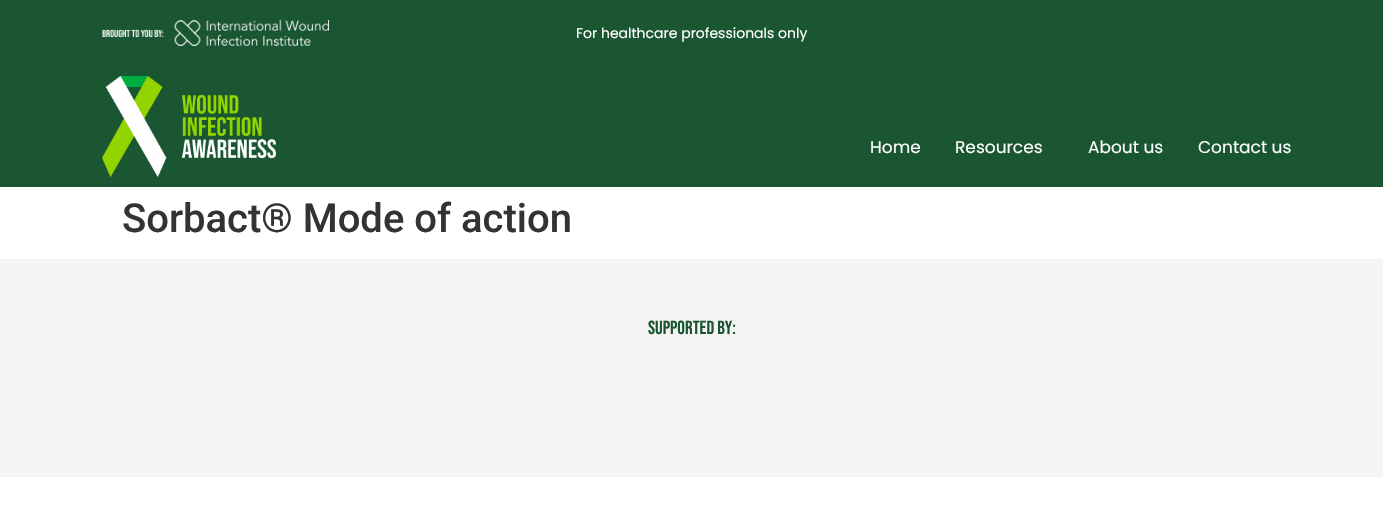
#include "include/core/SkBlurTypes.h"
#include "include/core/SkCanvas.h"
#include "include/core/SkData.h"
#include "include/core/SkFont.h"
#include "include/core/SkFontMgr.h"
#include "include/core/SkImage.h"
#include "include/core/SkMaskFilter.h"
#include "include/core/SkPaint.h"
#include "include/core/SkPathBuilder.h"
#include "include/core/SkTextBlob.h"
#include "include/effects/SkDashPathEffect.h"
#include "include/effects/SkGradientShader.h"
#include "include/utils/SkParsePath.h"

extern sk_sp<SkFontMgr> fontMgr;

void draw(SkCanvas* canvas) {
  SkPaint p;
  p.setAntiAlias(true);
  canvas->clear(SK_ColorWHITE);
  p.setColor(SkColorSetRGB(26, 86, 50));
  canvas->drawRect(SkRect::MakeLTRB(0, 0, 1383, 187), p);
  canvas->drawImageRect(SkImages::DeferredFromEncodedData(SkData::MakeFromFileName("images/1.png")), SkRect::MakeLTRB(102, 20, 329, 46), SkSamplingOptions());
  canvas->drawImageRect(SkImages::DeferredFromEncodedData(SkData::MakeFromFileName("images/2.png")), SkRect::MakeLTRB(102, 76, 276, 177), SkSamplingOptions());
  p.setColor(SkColorSetRGB(244, 244, 244));
  canvas->drawRect(SkRect::MakeLTRB(0, 259, 1383, 477), p);
  SkFont font1(fontMgr->matchFamilyStyle("Poppins", SkFontStyle::Normal()), 14);
  font1.setSubpixel(true);
  p.setColor(SK_ColorWHITE);
  canvas->drawString("For healthcare professionals only", 576, 38, font1, p);
  SkFont font2(fontMgr->matchFamilyStyle("Poppins", SkFontStyle::Normal()), 17);
  font2.setSubpixel(true);
  canvas->drawString("Home", 870, 153, font2, p);
  canvas->drawString("Resources", 955, 153, font2, p);
  canvas->drawString("About us", 1088, 153, font2, p);
  canvas->drawString("Contact us", 1198, 153, font2, p);
  SkFont font3(fontMgr->matchFamilyStyle("Roboto", SkFontStyle(500, SkFontStyle::kNormal_Width, SkFontStyle::kUpright_Slant)), 40);
  font3.setSubpixel(true);
  p.setColor(SkColorSetRGB(51, 51, 51));
  canvas->drawString("Sorbact® Mode of action", 122, 232, font3, p);
  SkFont font4(fontMgr->matchFamilyStyle("Bebas Neue", SkFontStyle::Normal()), 19);
  font4.setSubpixel(true);
  p.setColor(SkColorSetRGB(26, 86, 50));
  canvas->drawString("SUPPORTED BY:", 648, 334, font4, p);
}
